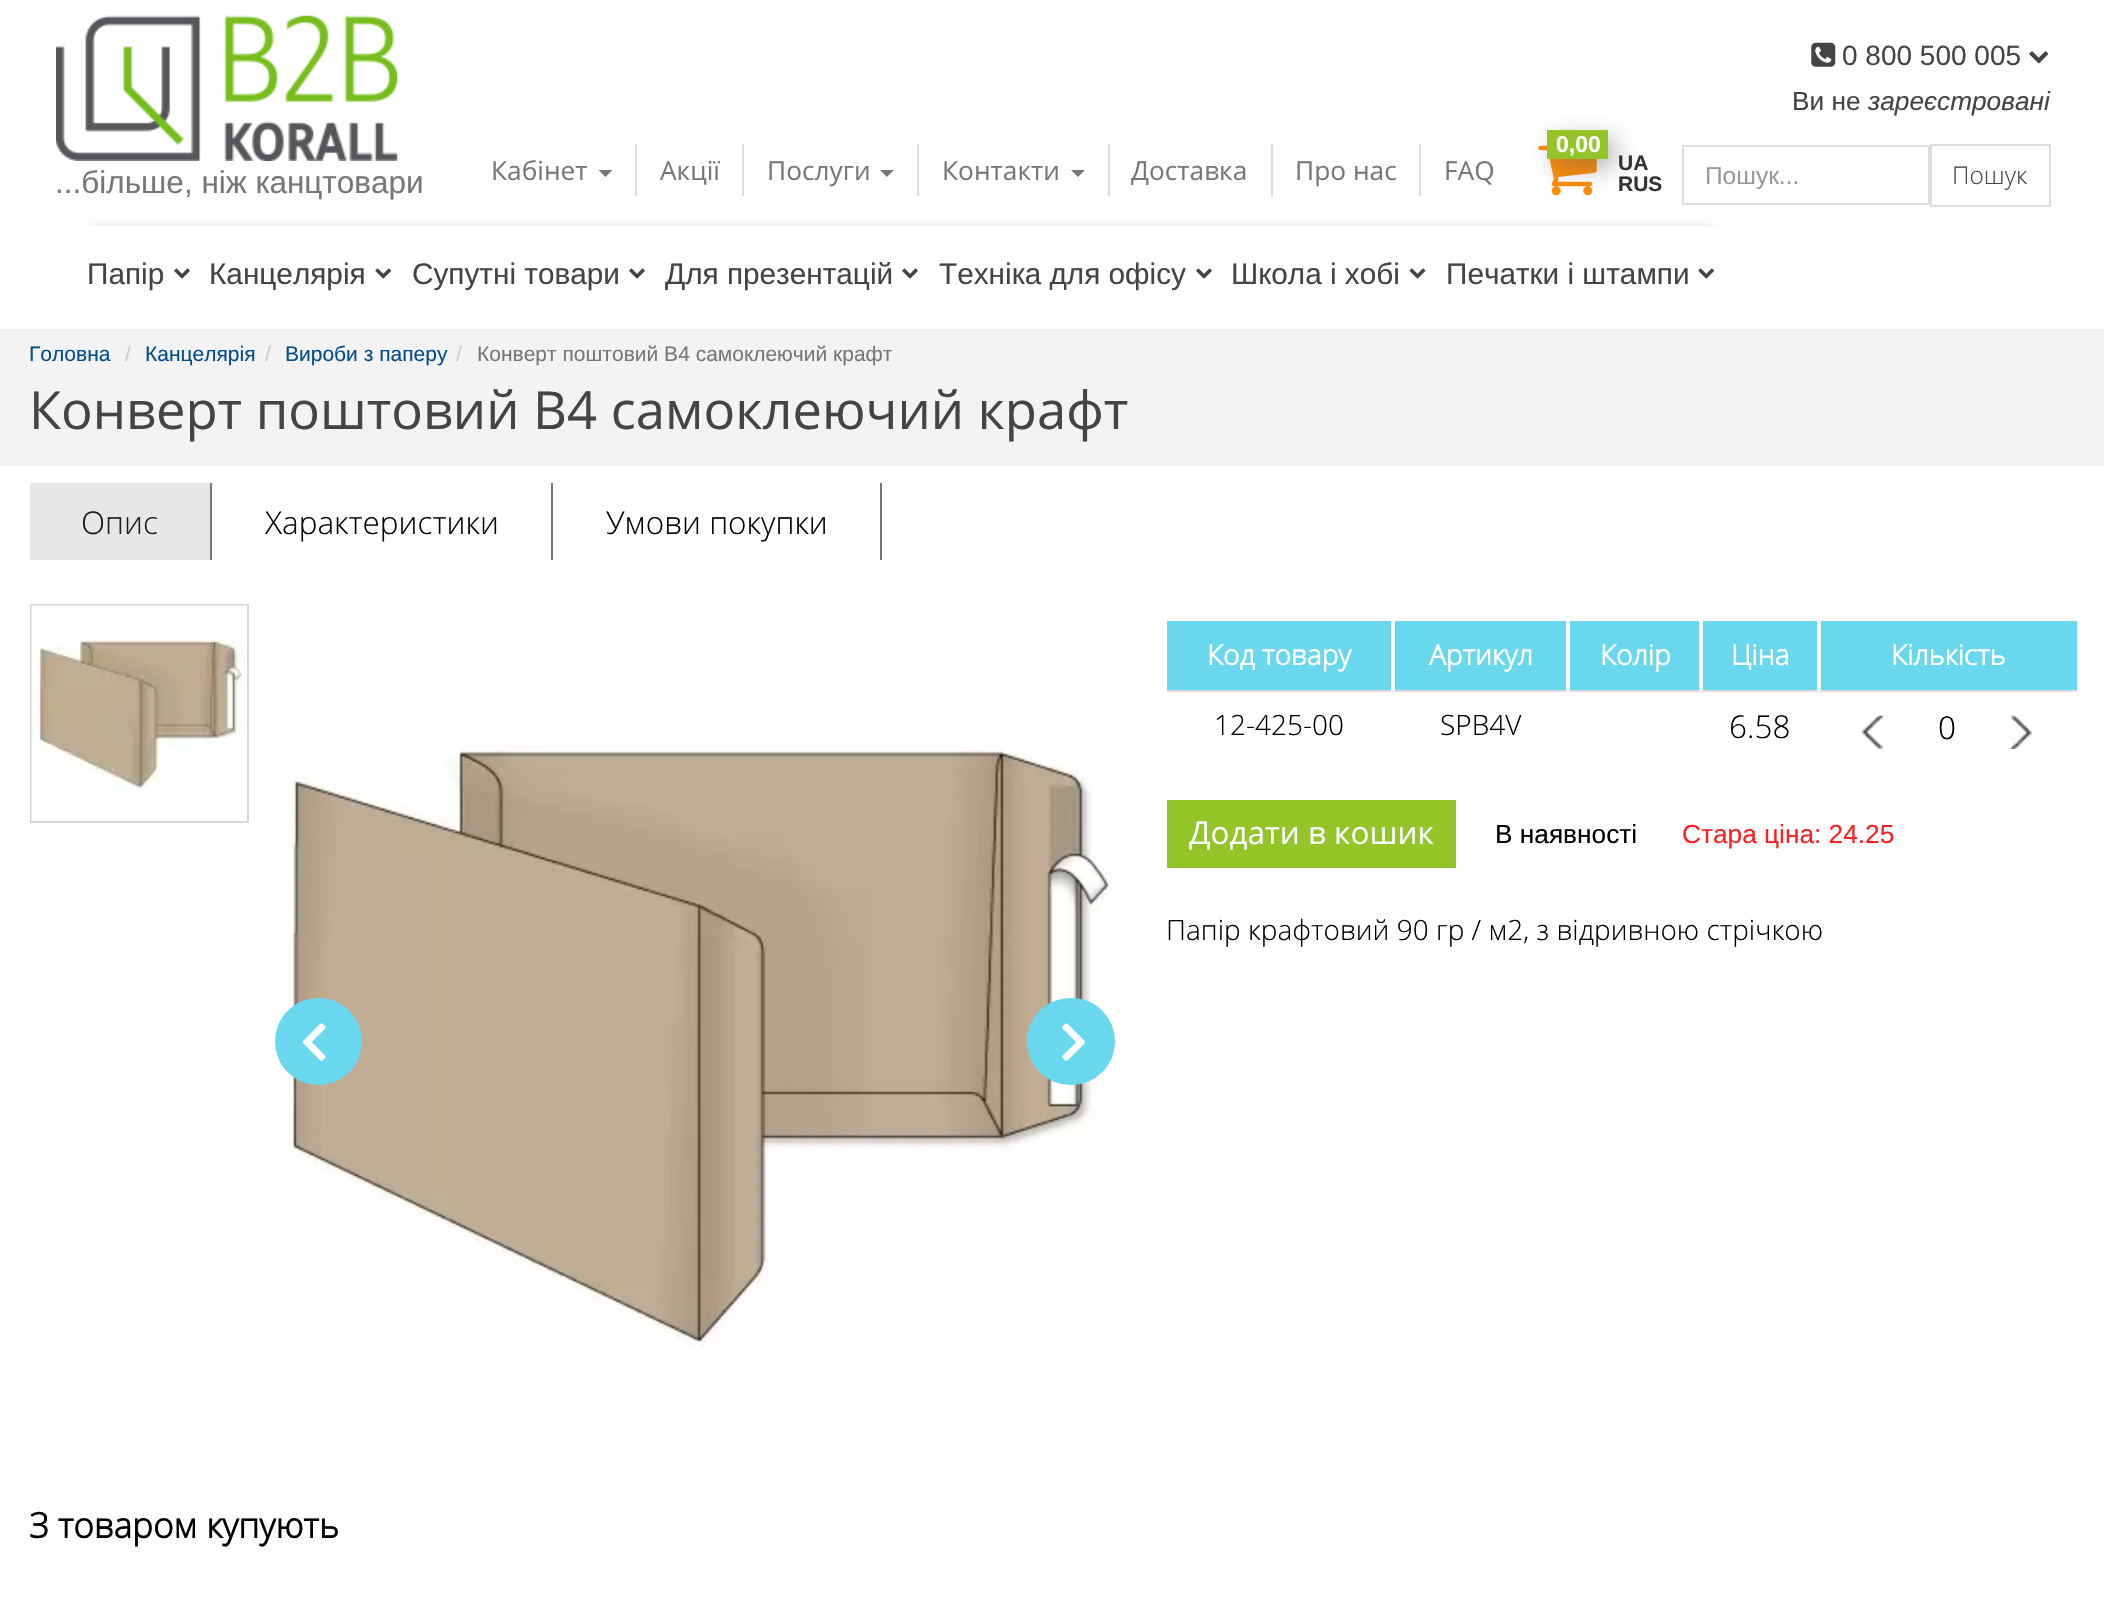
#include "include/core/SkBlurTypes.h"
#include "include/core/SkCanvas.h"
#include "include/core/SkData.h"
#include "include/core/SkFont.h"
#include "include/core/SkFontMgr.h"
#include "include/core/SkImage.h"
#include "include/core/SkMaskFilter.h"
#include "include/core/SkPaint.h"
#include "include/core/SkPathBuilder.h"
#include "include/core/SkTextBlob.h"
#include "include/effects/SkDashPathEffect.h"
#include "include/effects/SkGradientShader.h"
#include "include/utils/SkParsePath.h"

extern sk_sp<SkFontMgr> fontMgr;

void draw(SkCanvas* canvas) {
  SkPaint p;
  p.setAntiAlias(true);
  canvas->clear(SK_ColorWHITE);
  p.setColor(SkColorSetRGB(231, 231, 231));
  canvas->drawRect(SkRect::MakeLTRB(30, 483, 210, 560), p);
  canvas->drawImageRect(SkImages::DeferredFromEncodedData(SkData::MakeFromFileName("images/1.png")), SkRect::MakeLTRB(1811, 42, 1836, 67), SkSamplingOptions());
  canvas->drawImageRect(SkImages::DeferredFromEncodedData(SkData::MakeFromFileName("images/2.png")), SkRect::MakeLTRB(2029, 51, 2049, 64), SkSamplingOptions());
  canvas->drawImageRect(SkImages::DeferredFromEncodedData(SkData::MakeFromFileName("images/3.png")), SkRect::MakeLTRB(1538, 145, 1597, 196), SkSamplingOptions());
  p.setColor(SkColorSetARGB(120, 94, 94, 94));
  p.setMaskFilter(SkMaskFilter::MakeBlur(kNormal_SkBlurStyle, 12));
  canvas->drawRect(SkRect::MakeLTRB(1554, 138, 1615, 168), p);
  p.setMaskFilter(nullptr);
  p.setColor(SkColorSetRGB(147, 197, 40));
  canvas->drawRect(SkRect::MakeLTRB(1547, 130, 1608, 159), p);
  p.setColor(SkColorSetRGB(221, 221, 221));
  canvas->drawRect(SkRect::MakeLTRB(635, 144, 637, 196), p);
  p.setColor(SkColorSetRGB(119, 119, 119));
  canvas->drawPath(SkPathBuilder().moveTo(598.5f, 170).lineTo(612.5f, 170).lineTo(605.5f, 177).close().detach(), p);
  p.setColor(SkColorSetRGB(221, 221, 221));
  canvas->drawRect(SkRect::MakeLTRB(742, 144, 744, 196), p);
  canvas->drawRect(SkRect::MakeLTRB(917, 144, 919, 196), p);
  p.setColor(SkColorSetRGB(119, 119, 119));
  canvas->drawPath(SkPathBuilder().moveTo(880, 170).lineTo(894, 170).lineTo(887, 177).close().detach(), p);
  p.setColor(SkColorSetRGB(221, 221, 221));
  canvas->drawRect(SkRect::MakeLTRB(1108, 144, 1110, 196), p);
  p.setColor(SkColorSetRGB(119, 119, 119));
  canvas->drawPath(SkPathBuilder().moveTo(1071, 170).lineTo(1085, 170).lineTo(1078, 177).close().detach(), p);
  p.setColor(SkColorSetRGB(221, 221, 221));
  canvas->drawRect(SkRect::MakeLTRB(1271, 144, 1273, 196), p);
  canvas->drawRect(SkRect::MakeLTRB(1419, 144, 1421, 196), p);
  p.setStyle(SkPaint::kStroke_Style);
  p.setStrokeWidth(2);
  canvas->drawRect(SkRect::MakeLTRB(1683, 146, 1929, 204), p);
  canvas->drawRect(SkRect::MakeLTRB(1931, 145, 2050, 206), p);
  canvas->drawImageRect(SkImages::DeferredFromEncodedData(SkData::MakeFromFileName("images/4.png")), SkRect::MakeLTRB(56, 15, 398, 161), SkSamplingOptions());
  canvas->save();
  canvas->clipPath(SkPathBuilder(SkPathFillType::kEvenOdd).moveTo(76, 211).lineTo(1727, 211).lineTo(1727, 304).lineTo(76, 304).close().moveTo(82, 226).lineTo(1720, 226).lineTo(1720, 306).lineTo(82, 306).close().detach(), true);
  p.setStyle(SkPaint::kFill_Style);
  p.setMaskFilter(SkMaskFilter::MakeBlur(kNormal_SkBlurStyle, 4.5f));
  canvas->drawRect(SkRect::MakeLTRB(91, 226, 1712, 289), p);
  p.setMaskFilter(nullptr);
  canvas->restore();
  canvas->drawImageRect(SkImages::DeferredFromEncodedData(SkData::MakeFromFileName("images/5.png")), SkRect::MakeLTRB(174, 268, 190, 279), SkSamplingOptions());
  canvas->drawImageRect(SkImages::DeferredFromEncodedData(SkData::MakeFromFileName("images/6.png")), SkRect::MakeLTRB(375, 268, 392, 279), SkSamplingOptions());
  canvas->drawImageRect(SkImages::DeferredFromEncodedData(SkData::MakeFromFileName("images/5.png")), SkRect::MakeLTRB(629, 268, 645, 279), SkSamplingOptions());
  canvas->drawImageRect(SkImages::DeferredFromEncodedData(SkData::MakeFromFileName("images/7.png")), SkRect::MakeLTRB(902, 268, 918, 279), SkSamplingOptions());
  canvas->drawImageRect(SkImages::DeferredFromEncodedData(SkData::MakeFromFileName("images/5.png")), SkRect::MakeLTRB(1196, 268, 1212, 279), SkSamplingOptions());
  canvas->drawImageRect(SkImages::DeferredFromEncodedData(SkData::MakeFromFileName("images/8.png")), SkRect::MakeLTRB(1409, 268, 1426, 279), SkSamplingOptions());
  canvas->drawImageRect(SkImages::DeferredFromEncodedData(SkData::MakeFromFileName("images/6.png")), SkRect::MakeLTRB(1698, 268, 1715, 279), SkSamplingOptions());
  p.setColor(SkColorSetRGB(243, 243, 243));
  canvas->drawRect(SkRect::MakeLTRB(0, 329, 2104, 466), p);
  p.setColor(SkColorSetRGB(119, 119, 119));
  canvas->drawRect(SkRect::MakeLTRB(210, 483, 212, 560), p);
  canvas->drawRect(SkRect::MakeLTRB(551, 483, 553, 560), p);
  canvas->drawRect(SkRect::MakeLTRB(880, 483, 882, 560), p);
  p.setStyle(SkPaint::kStroke_Style);
  p.setColor(SkColorSetRGB(215, 215, 215));
  canvas->drawRect(SkRect::MakeLTRB(31, 605, 248, 822), p);
  canvas->drawImageRect(SkImages::DeferredFromEncodedData(SkData::MakeFromFileName("images/9.png")), SkRect::MakeLTRB(31, 605, 247, 821), SkSamplingOptions());
  canvas->drawImageRect(SkImages::DeferredFromEncodedData(SkData::MakeFromFileName("images/10.png")), SkRect::MakeLTRB(287, 746, 1111, 1348), SkSamplingOptions());
  p.setStyle(SkPaint::kFill_Style);
  p.setColor(SkColorSetRGB(105, 215, 238));
  canvas->drawCircle(318.5f, 1041.5f, 43.5f, p);
  canvas->drawImageRect(SkImages::DeferredFromEncodedData(SkData::MakeFromFileName("images/11.png")), SkRect::MakeLTRB(302, 1023, 326, 1061), SkSamplingOptions());
  canvas->drawRoundRect(SkRect::MakeLTRB(1027, 998, 1115, 1085), 43.5f, 43.5f, p);
  canvas->drawImageRect(SkImages::DeferredFromEncodedData(SkData::MakeFromFileName("images/12.png")), SkRect::MakeLTRB(1062, 1023, 1085, 1061), SkSamplingOptions());
  canvas->drawRect(SkRect::MakeLTRB(1167, 621, 1391, 690), p);
  canvas->drawRect(SkRect::MakeLTRB(1395, 621, 1566, 690), p);
  p.setColor(SkColorSetRGB(221, 221, 221));
  canvas->drawRect(SkRect::MakeLTRB(1167, 690, 2077, 692), p);
  p.setColor(SK_ColorWHITE);
  canvas->drawRect(SkRect::MakeLTRB(1391, 690, 1395, 691), p);
  p.setColor(SkColorSetRGB(105, 215, 238));
  canvas->drawRect(SkRect::MakeLTRB(1570, 621, 1699, 690), p);
  p.setColor(SK_ColorWHITE);
  canvas->drawRect(SkRect::MakeLTRB(1566, 690, 1570, 691), p);
  p.setColor(SkColorSetRGB(105, 215, 238));
  canvas->drawRect(SkRect::MakeLTRB(1703, 621, 1817, 690), p);
  p.setColor(SK_ColorWHITE);
  canvas->drawRect(SkRect::MakeLTRB(1699, 690, 1703, 691), p);
  p.setColor(SkColorSetRGB(105, 215, 238));
  canvas->drawRect(SkRect::MakeLTRB(1821, 621, 2077, 690), p);
  p.setColor(SK_ColorWHITE);
  canvas->drawRect(SkRect::MakeLTRB(1817, 690, 1821, 691), p);
  canvas->drawImageRect(SkImages::DeferredFromEncodedData(SkData::MakeFromFileName("images/13.png")), SkRect::MakeLTRB(1862, 715, 1883, 749), SkSamplingOptions());
  canvas->drawImageRect(SkImages::DeferredFromEncodedData(SkData::MakeFromFileName("images/14.png")), SkRect::MakeLTRB(2010, 715, 2032, 749), SkSamplingOptions());
  p.setColor(SkColorSetRGB(147, 197, 40));
  canvas->drawRect(SkRect::MakeLTRB(1167, 800, 1456, 868), p);
  SkFont font1(fontMgr->matchFamilyStyle("Liberation Sans", SkFontStyle::Normal()), 28);
  font1.setSubpixel(true);
  p.setColor(SkColorSetRGB(68, 68, 68));
  canvas->drawString("0 800 500 005", 1842, 65, font1, p);
  SkFont font2(fontMgr->matchFamilyStyle("Liberation Sans", SkFontStyle::Normal()), 26.25f);
  font2.setSubpixel(true);
  canvas->drawString("Ви не", 1792, 110, font2, p);
  SkFont font3(fontMgr->matchFamilyStyle("Liberation Sans", SkFontStyle::Italic()), 26.25f);
  font3.setSubpixel(true);
  canvas->drawString("зареєстровані", 1868, 110, font3, p);
  SkFont font4(fontMgr->matchFamilyStyle("Liberation Sans", SkFontStyle::Bold()), 23);
  font4.setSubpixel(true);
  p.setColor(SK_ColorWHITE);
  canvas->drawString("0,00", 1556, 152, font4, p);
  SkFont font5(fontMgr->matchFamilyStyle("Open Sans", SkFontStyle::Normal()), 26.25f);
  font5.setSubpixel(true);
  p.setColor(SkColorSetRGB(119, 119, 119));
  canvas->drawString("Кабінет", 491, 180, font5, p);
  canvas->drawString("Акції", 660, 180, font5, p);
  canvas->drawString("Послуги", 767, 180, font5, p);
  canvas->drawString("Контакти", 942, 180, font5, p);
  canvas->drawString("Доставка", 1131, 180, font5, p);
  canvas->drawString("Про нас", 1295, 180, font5, p);
  canvas->drawString("FAQ", 1444, 180, font5, p);
  SkFont font6(fontMgr->matchFamilyStyle("Liberation Sans", SkFontStyle::Bold()), 21);
  font6.setSubpixel(true);
  p.setColor(SkColorSetRGB(51, 51, 51));
  canvas->drawString("UA", 1618, 170, font6, p);
  canvas->drawString("RUS", 1618, 191, font6, p);
  SkFont font7(fontMgr->matchFamilyStyle("Liberation Sans", SkFontStyle::Normal()), 24.5f);
  font7.setSubpixel(true);
  p.setColor(SkColorSetRGB(153, 153, 153));
  canvas->drawString("Пошук...", 1705, 184, font7, p);
  SkFont font8(fontMgr->matchFamilyStyle("Open Sans", SkFontStyle(300, SkFontStyle::kNormal_Width, SkFontStyle::kUpright_Slant)), 24.5f);
  font8.setSubpixel(true);
  p.setColor(SkColorSetRGB(68, 68, 68));
  canvas->drawString("Пошук", 1952, 184, font8, p);
  SkFont font9(fontMgr->matchFamilyStyle("Liberation Sans", SkFontStyle::Normal()), 31.5f);
  font9.setSubpixel(true);
  p.setColor(SkColorSetRGB(119, 119, 119));
  canvas->drawString("...більше, ніж канцтовари", 55, 193, font9, p);
  SkFont font10(fontMgr->matchFamilyStyle("Liberation Sans", SkFontStyle::Normal()), 29.75f);
  font10.setSubpixel(true);
  p.setColor(SkColorSetRGB(68, 68, 68));
  canvas->drawString("Папір", 87, 284, font10, p);
  canvas->drawString("Канцелярія", 209, 284, font10, p);
  canvas->drawString("Супутні товари", 412, 284, font10, p);
  canvas->drawString("Для презентацій", 665, 284, font10, p);
  canvas->drawString("Техніка для офісу", 939, 284, font10, p);
  canvas->drawString("Школа і хобі", 1231, 284, font10, p);
  canvas->drawString("Печатки і штампи", 1446, 284, font10, p);
  SkFont font11(fontMgr->matchFamilyStyle("Liberation Sans", SkFontStyle::Normal()), 21);
  font11.setSubpixel(true);
  p.setColor(SkColorSetRGB(1, 76, 140));
  canvas->drawString("Головна", 29, 361, font11, p);
  p.setColor(SkColorSetRGB(204, 204, 204));
  canvas->drawString("/", 125, 361, font11, p);
  p.setColor(SkColorSetRGB(1, 76, 140));
  canvas->drawString("Канцелярія", 145, 361, font11, p);
  p.setColor(SkColorSetRGB(204, 204, 204));
  canvas->drawString("/", 265, 361, font11, p);
  p.setColor(SkColorSetRGB(1, 76, 140));
  canvas->drawString("Вироби з паперу", 285, 361, font11, p);
  p.setColor(SkColorSetRGB(204, 204, 204));
  canvas->drawString("/", 456, 361, font11, p);
  p.setColor(SkColorSetRGB(119, 119, 119));
  canvas->drawString("Конверт поштовий В4 самоклеючий крафт", 477, 361, font11, p);
  SkFont font12(fontMgr->matchFamilyStyle("Open Sans", SkFontStyle::Normal()), 52.5f);
  font12.setSubpixel(true);
  p.setColor(SkColorSetRGB(68, 68, 68));
  canvas->drawString("Конверт поштовий В4 самоклеючий крафт", 29, 429, font12, p);
  SkFont font13(fontMgr->matchFamilyStyle("Open Sans", SkFontStyle(300, SkFontStyle::kNormal_Width, SkFontStyle::kUpright_Slant)), 31.5f);
  font13.setSubpixel(true);
  p.setColor(SkColorSetRGB(27, 27, 27));
  canvas->drawString("Опис", 81, 534, font13, p);
  p.setColor(SK_ColorBLACK);
  canvas->drawString("Характеристики", 265, 534, font13, p);
  canvas->drawString("Умови покупки", 606, 534, font13, p);
  SkFont font14(fontMgr->matchFamilyStyle("Open Sans", SkFontStyle::Bold()), 28);
  font14.setSubpixel(true);
  p.setColor(SK_ColorWHITE);
  canvas->drawString("Код товару", 1207, 665, font14, p);
  canvas->drawString("Артикул", 1429, 665, font14, p);
  canvas->drawString("Колір", 1600, 665, font14, p);
  canvas->drawString("Ціна", 1731, 665, font14, p);
  canvas->drawString("Кількість", 1891, 665, font14, p);
  SkFont font15(fontMgr->matchFamilyStyle("Open Sans", SkFontStyle(300, SkFontStyle::kNormal_Width, SkFontStyle::kUpright_Slant)), 28);
  font15.setSubpixel(true);
  p.setColor(SK_ColorBLACK);
  canvas->drawString("12-425-00", 1214, 735, font15, p);
  canvas->drawString("SPB4V", 1440, 735, font15, p);
  canvas->drawString("6.58", 1729, 738, font13, p);
  canvas->drawString("0", 1938, 739, font13, p);
  SkFont font16(fontMgr->matchFamilyStyle("Open Sans", SkFontStyle::Normal()), 31.5f);
  font16.setSubpixel(true);
  p.setColor(SK_ColorWHITE);
  canvas->drawString("Додати в кошик", 1189, 844, font16, p);
  p.setColor(SK_ColorBLACK);
  canvas->drawString("В наявності", 1495, 843, font2, p);
  p.setColor(SkColorSetRGB(253, 31, 31));
  canvas->drawString("Стара ціна: 24.25", 1682, 843, font2, p);
  p.setColor(SK_ColorBLACK);
  canvas->drawString("Папір крафтовий 90 гр / м2, з відривною стрічкою", 1166, 940, font15, p);
  SkFont font17(fontMgr->matchFamilyStyle("Open Sans", SkFontStyle::Bold()), 35);
  font17.setSubpixel(true);
  canvas->drawString("З товаром купують", 29, 1538, font17, p);
}
